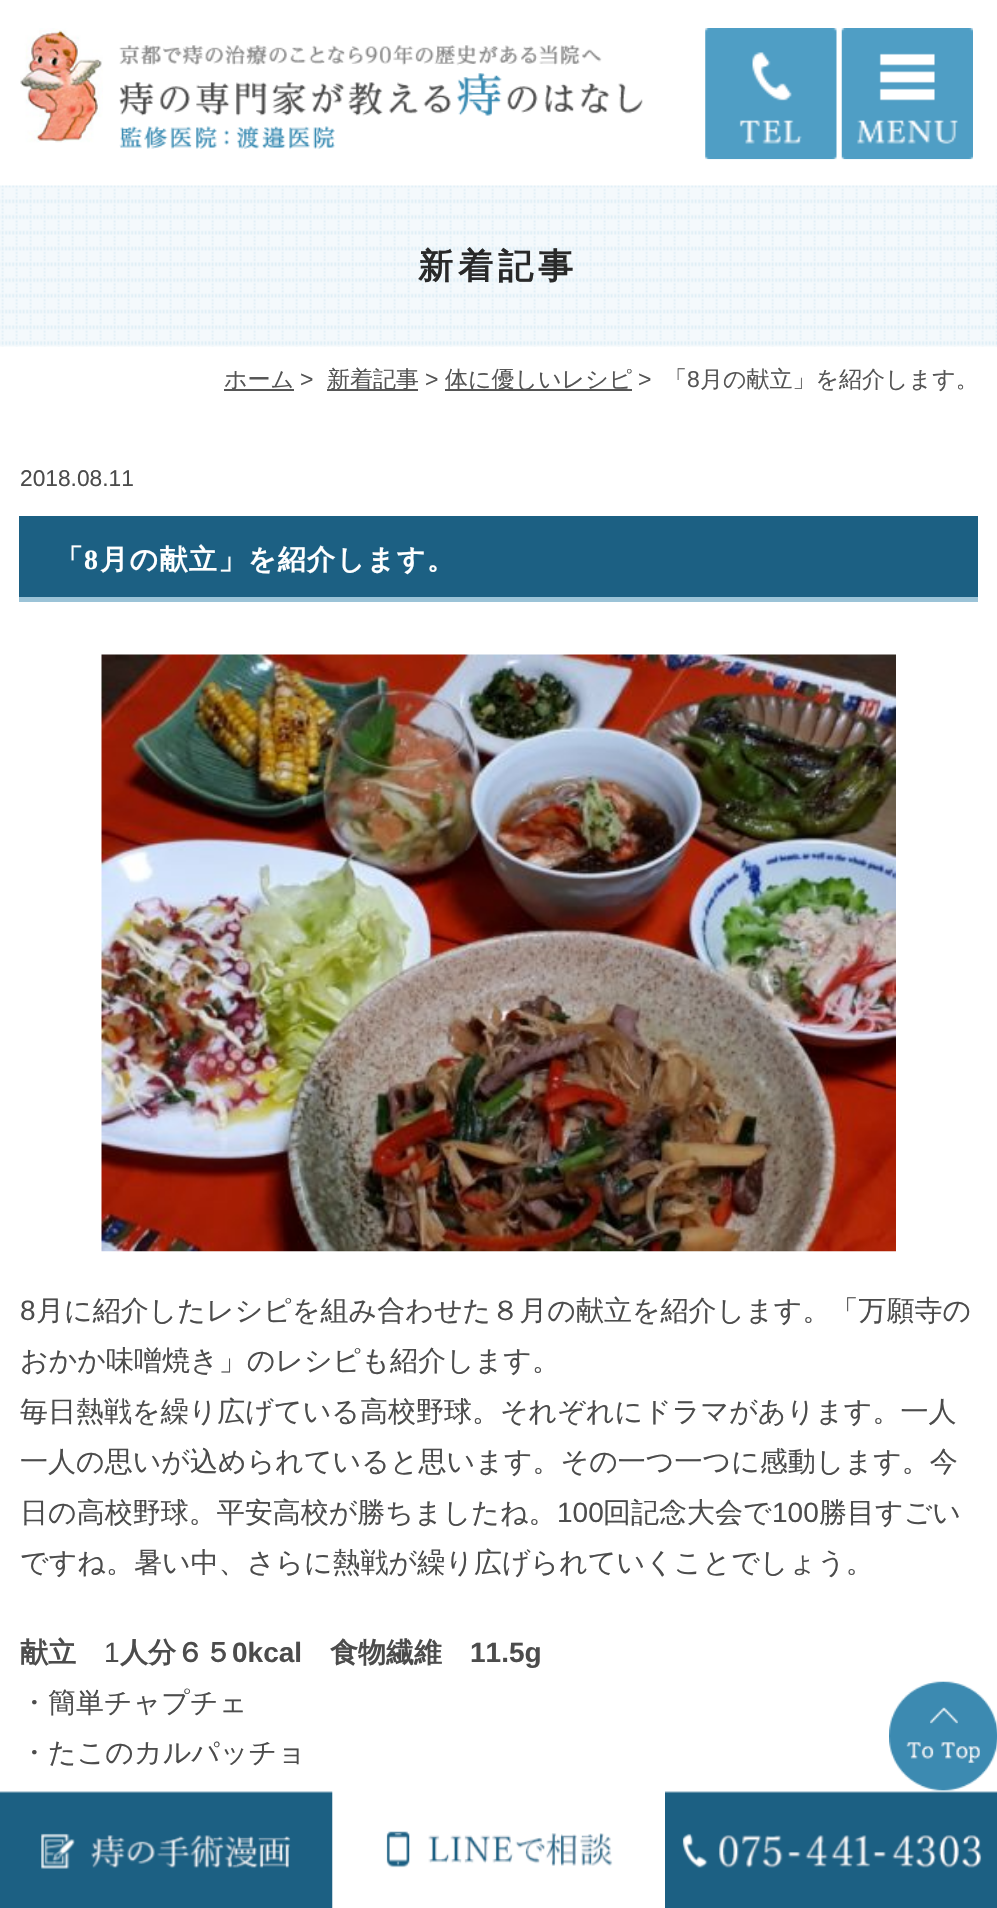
#include "include/core/SkBlurTypes.h"
#include "include/core/SkCanvas.h"
#include "include/core/SkData.h"
#include "include/core/SkFont.h"
#include "include/core/SkFontMgr.h"
#include "include/core/SkImage.h"
#include "include/core/SkMaskFilter.h"
#include "include/core/SkPaint.h"
#include "include/core/SkPathBuilder.h"
#include "include/core/SkTextBlob.h"
#include "include/effects/SkDashPathEffect.h"
#include "include/effects/SkGradientShader.h"
#include "include/utils/SkParsePath.h"

extern sk_sp<SkFontMgr> fontMgr;

void draw(SkCanvas* canvas) {
  SkPaint p;
  p.setAntiAlias(true);
  auto spacedText = [&](const char* s, float x, float y, const SkFont& font, const SkPaint& ink, float letter, float word) {
    std::vector<SkGlyphID> glyphs(font.countText(s, strlen(s), SkTextEncoding::kUTF8));
    std::vector<float> xs(glyphs.size());
    font.textToGlyphs(s, strlen(s), SkTextEncoding::kUTF8, glyphs);
    font.getXPos(glyphs, xs, x);
    float extra = 0;
    for (size_t i = 0; i < glyphs.size(); i++) {
      xs[i] += extra;
      extra += letter + word * (glyphs[i] == font.unicharToGlyph(' '));
    }
    canvas->drawTextBlob(SkTextBlob::MakeFromPosHGlyphs(glyphs, xs, y, font), 0, 0, ink);
  };
  canvas->clear(SK_ColorWHITE);
  canvas->drawImageRect(SkImages::DeferredFromEncodedData(SkData::MakeFromFileName("images/1.png")), SkRect::MakeLTRB(20, 28, 643, 149), SkSamplingOptions());
  canvas->drawImageRect(SkImages::DeferredFromEncodedData(SkData::MakeFromFileName("images/2.png")), SkRect::MakeLTRB(705, 28, 837, 160), SkSamplingOptions());
  canvas->drawImageRect(SkImages::DeferredFromEncodedData(SkData::MakeFromFileName("images/3.png")), SkRect::MakeLTRB(841, 28, 973, 160), SkSamplingOptions());
  canvas->drawImageRect(SkImages::DeferredFromEncodedData(SkData::MakeFromFileName("images/4.png")), SkRect::MakeLTRB(0, 185, 997, 347), SkSamplingOptions());
  p.setColor(SkColorSetRGB(85, 85, 85));
  canvas->drawRect(SkRect::MakeLTRB(224, 389, 294, 391), p);
  canvas->drawRect(SkRect::MakeLTRB(327, 389, 418, 391), p);
  canvas->drawRect(SkRect::MakeLTRB(445, 389, 632, 391), p);
  p.setColor(SkColorSetRGB(28, 96, 131));
  canvas->drawRect(SkRect::MakeLTRB(19, 516, 978, 597), p);
  p.setColor(SkColorSetRGB(155, 195, 215));
  canvas->drawRect(SkRect::MakeLTRB(19, 597, 978, 602), p);
  canvas->drawImageRect(SkImages::DeferredFromEncodedData(SkData::MakeFromFileName("images/5.png")), SkRect::MakeLTRB(101, 654, 896, 1252), SkSamplingOptions());
  canvas->drawImageRect(SkImages::DeferredFromEncodedData(SkData::MakeFromFileName("images/6.png")), SkRect::MakeLTRB(889, 1681, 997, 1791), SkSamplingOptions());
  canvas->drawImageRect(SkImages::DeferredFromEncodedData(SkData::MakeFromFileName("images/7.png")), SkRect::MakeLTRB(0, 1791, 333, 1908), SkSamplingOptions());
  canvas->drawImageRect(SkImages::DeferredFromEncodedData(SkData::MakeFromFileName("images/8.png")), SkRect::MakeLTRB(332, 1790, 613, 1908), SkSamplingOptions());
  canvas->drawImageRect(SkImages::DeferredFromEncodedData(SkData::MakeFromFileName("images/9.png")), SkRect::MakeLTRB(665, 1791, 997, 1908), SkSamplingOptions());
  SkFont font1(fontMgr->matchFamilyStyle("WenQuanYi Zen Hei", SkFontStyle::Bold()), 35);
  font1.setSubpixel(true);
  p.setColor(SkColorSetRGB(41, 41, 41));
  spacedText("新着記事", 418, 278, font1, p, 5, 0);
  SkFont font2(fontMgr->matchFamilyStyle("WenQuanYi Zen Hei", SkFontStyle(500, SkFontStyle::kNormal_Width, SkFontStyle::kUpright_Slant)), 23);
  font2.setSubpixel(true);
  p.setColor(SkColorSetRGB(85, 85, 85));
  canvas->drawString("ホーム", 224, 387, font2, p);
  SkFont font3(fontMgr->matchFamilyStyle("Liberation Sans", SkFontStyle::Normal()), 23);
  font3.setSubpixel(true);
  canvas->drawString(">", 300, 387, font3, p);
  canvas->drawString("新着記事", 327, 387, font2, p);
  canvas->drawString(">", 425, 387, font3, p);
  canvas->drawString("体に優しいレシピ", 445, 387, font2, p);
  canvas->drawString(">", 638, 387, font3, p);
  canvas->drawString("「", 664, 387, font2, p);
  canvas->drawString("8", 687, 387, font3, p);
  canvas->drawString("月の献立」を紹介します。", 700, 387, font2, p);
  SkFont font4(fontMgr->matchFamilyStyle("Liberation Sans", SkFontStyle::Normal()), 22.75f);
  font4.setSubpixel(true);
  p.setColor(SkColorSetRGB(76, 76, 76));
  canvas->drawString("2018.08.11", 20, 486, font4, p);
  SkFont font5(fontMgr->matchFamilyStyle("WenQuanYi Zen Hei", SkFontStyle::Bold()), 28);
  font5.setSubpixel(true);
  p.setColor(SK_ColorWHITE);
  spacedText("「", 55, 569, font5, p, 1.4f, 0);
  SkFont font6(fontMgr->matchFamilyStyle("Liberation Serif", SkFontStyle::Bold()), 28);
  font6.setSubpixel(true);
  spacedText("8", 84, 569, font6, p, 1.4f, 0);
  spacedText("月の献立」を紹介します。", 100, 569, font5, p, 1.4f, 0);
  SkFont font7(fontMgr->matchFamilyStyle("Liberation Sans", SkFontStyle::Normal()), 28);
  font7.setSubpixel(true);
  p.setColor(SkColorSetRGB(76, 76, 76));
  canvas->drawString("8", 20, 1320, font7, p);
  SkFont font8(fontMgr->matchFamilyStyle("WenQuanYi Zen Hei", SkFontStyle(500, SkFontStyle::kNormal_Width, SkFontStyle::kUpright_Slant)), 28);
  font8.setSubpixel(true);
  canvas->drawString("月に紹介したレシピを組み合わせた８月の献立を紹介します。「万願寺の", 36, 1320, font8, p);
  canvas->drawString("おかか味噌焼き」のレシピも紹介します。", 20, 1370, font8, p);
  canvas->drawString("毎日熱戦を繰り広げている高校野球。それぞれにドラマがあります。一人", 20, 1421, font8, p);
  canvas->drawString("一人の思いが込められていると思います。その一つ一つに感動します。今", 20, 1471, font8, p);
  canvas->drawString("日の高校野球。平安高校が勝ちましたね。", 20, 1522, font8, p);
  canvas->drawString("100", 557, 1522, font7, p);
  canvas->drawString("回記念大会で", 603, 1522, font8, p);
  canvas->drawString("100", 772, 1522, font7, p);
  canvas->drawString("勝目すごい", 819, 1522, font8, p);
  canvas->drawString("ですね。暑い中、さらに熱戦が繰り広げられていくことでしょう。", 20, 1572, font8, p);
  canvas->drawString("献立", 20, 1662, font5, p);
  canvas->drawString("1", 104, 1662, font7, p);
  canvas->drawString("人分６５", 120, 1662, font5, p);
  SkFont font9(fontMgr->matchFamilyStyle("Liberation Sans", SkFontStyle::Bold()), 28);
  font9.setSubpixel(true);
  canvas->drawString("0kcal", 232, 1662, font9, p);
  canvas->drawString("食物繊維", 330, 1662, font5, p);
  canvas->drawString("11.5g", 470, 1662, font9, p);
  canvas->drawString("・簡単チャプチェ", 20, 1712, font8, p);
  canvas->drawString("・たこのカルパッチョ", 20, 1762, font8, p);
}
